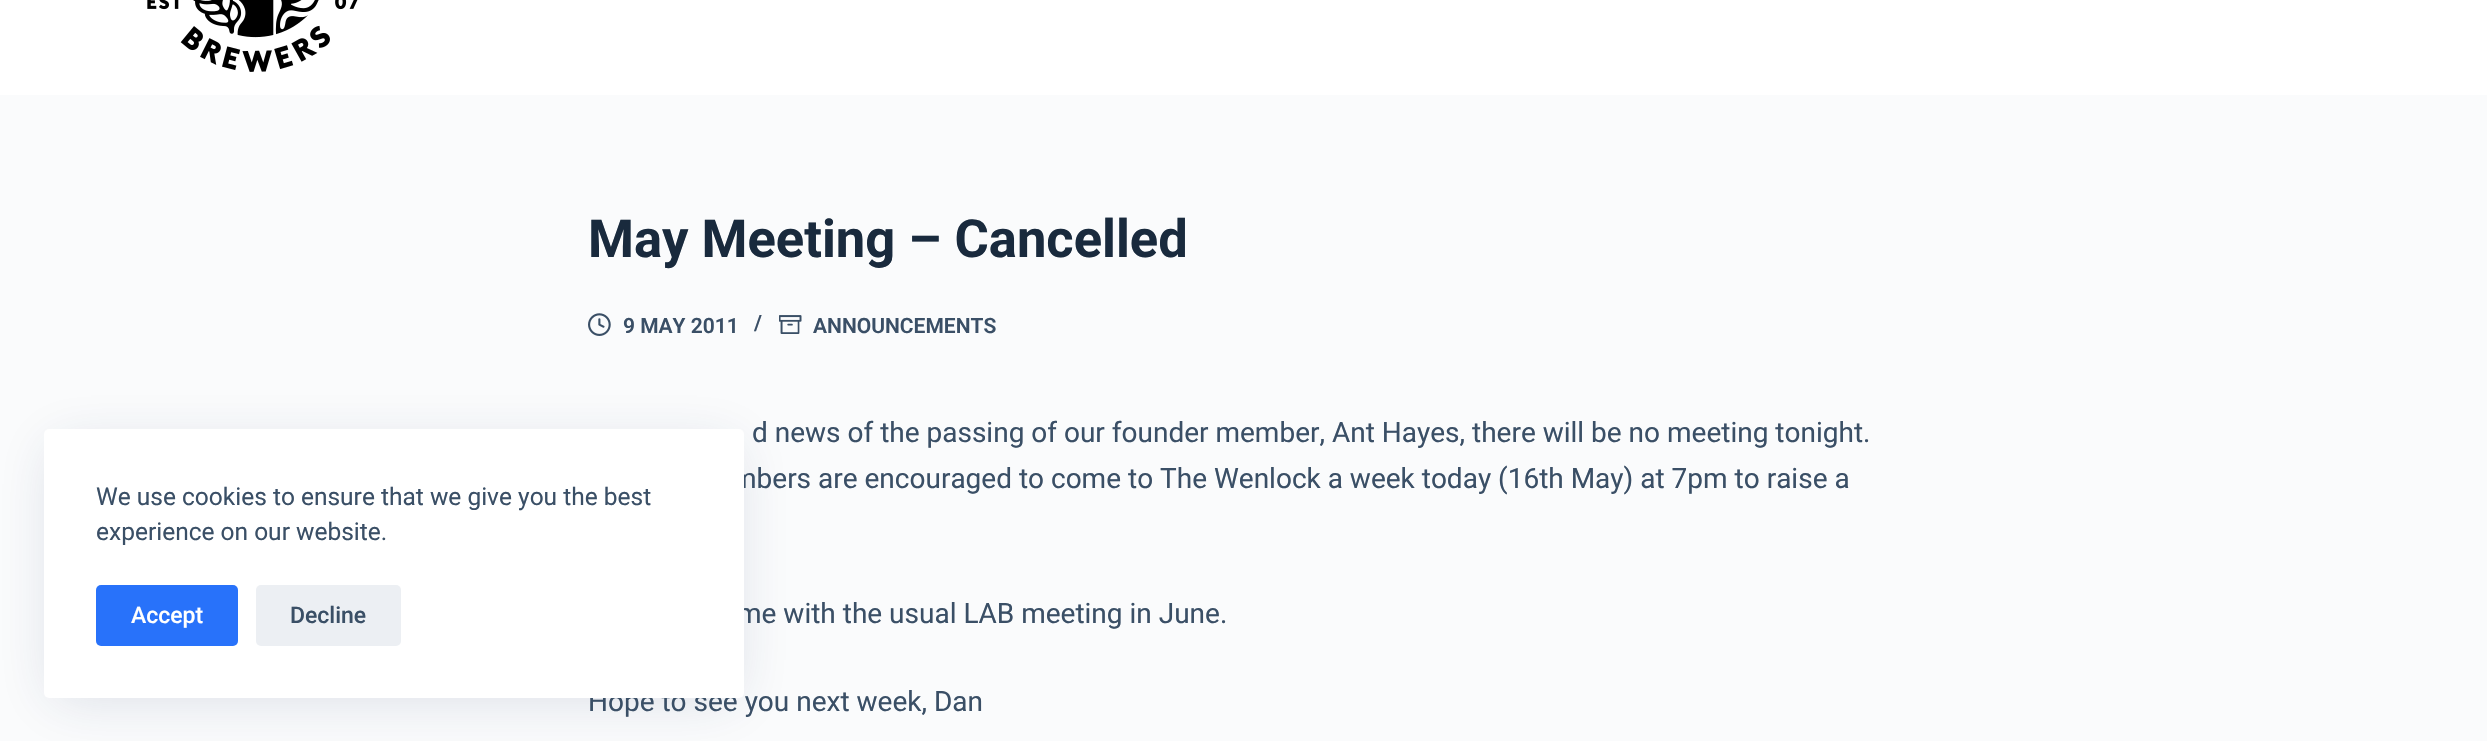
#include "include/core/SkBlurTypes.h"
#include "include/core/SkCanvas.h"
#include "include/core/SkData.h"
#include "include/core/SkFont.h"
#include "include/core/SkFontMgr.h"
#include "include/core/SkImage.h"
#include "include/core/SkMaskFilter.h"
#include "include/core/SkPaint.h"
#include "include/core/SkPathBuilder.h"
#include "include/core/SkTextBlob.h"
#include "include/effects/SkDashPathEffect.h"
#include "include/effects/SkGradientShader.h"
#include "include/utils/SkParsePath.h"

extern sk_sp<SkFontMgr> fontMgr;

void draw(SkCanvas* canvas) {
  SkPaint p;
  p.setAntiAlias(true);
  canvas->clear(SkColorSetRGB(250, 251, 252));
  p.setColor(SkColorSetARGB(38, 34, 56, 101));
  p.setMaskFilter(SkMaskFilter::MakeBlur(kNormal_SkBlurStyle, 26));
  canvas->drawRect(SkRect::MakeLTRB(53, 446, 735, 698), p);
  p.setMaskFilter(nullptr);
  p.setColor(SK_ColorWHITE);
  canvas->drawRect(SkRect::MakeLTRB(0, 0, 2487, 95), p);
  canvas->drawImageRect(SkImages::DeferredFromEncodedData(SkData::MakeFromFileName("images/1.png")), SkRect::MakeLTRB(147, 0, 358, 72), SkSamplingOptions());
  canvas->drawImageRect(SkImages::DeferredFromEncodedData(SkData::MakeFromFileName("images/2.png")), SkRect::MakeLTRB(588, 313, 611, 336), SkSamplingOptions());
  canvas->drawImageRect(SkImages::DeferredFromEncodedData(SkData::MakeFromFileName("images/3.png")), SkRect::MakeLTRB(779, 315, 802, 334), SkSamplingOptions());
  SkFont font1(fontMgr->matchFamilyStyle("Roboto", SkFontStyle::Bold()), 52.5f);
  font1.setSubpixel(true);
  p.setColor(SkColorSetRGB(25, 42, 61));
  canvas->drawString("May Meeting – Cancelled", 588, 257, font1, p);
  SkFont font2(fontMgr->matchFamilyStyle("Roboto", SkFontStyle(600, SkFontStyle::kNormal_Width, SkFontStyle::kUpright_Slant)), 21);
  font2.setSubpixel(true);
  p.setColor(SkColorSetRGB(58, 79, 102));
  canvas->drawString("9 MAY 2011", 623, 333, font2, p);
  canvas->drawString("/", 754, 330, font2, p);
  canvas->drawString("ANNOUNCEMENTS", 813, 333, font2, p);
  SkFont font3(fontMgr->matchFamilyStyle("Roboto", SkFontStyle::Normal()), 28);
  font3.setSubpixel(true);
  canvas->drawString("d news of the passing of our founder member, Ant Hayes, there will be no meeting tonight.", 752, 442, font3, p);
  canvas->drawString("mbers are encouraged to come to The Wenlock a week today (16th May) at 7pm to raise a", 732, 488, font3, p);
  canvas->drawString("me with the usual LAB meeting in June.", 737, 623, font3, p);
  canvas->drawString("Hope to see you next week, Dan", 588, 711, font3, p);
  p.setColor(SK_ColorWHITE);
  canvas->drawRoundRect(SkRect::MakeLTRB(44, 429, 744, 698), 5, 5, p);
  p.setColor(SkColorSetRGB(236, 239, 243));
  canvas->drawRoundRect(SkRect::MakeLTRB(256, 585, 401, 646), 5, 5, p);
  SkFont font4(fontMgr->matchFamilyStyle("Roboto", SkFontStyle(500, SkFontStyle::kNormal_Width, SkFontStyle::kUpright_Slant)), 23);
  font4.setSubpixel(true);
  p.setColor(SkColorSetRGB(58, 79, 102));
  canvas->drawString("Decline", 290, 623, font4, p);
  p.setColor(SkColorSetRGB(40, 114, 250));
  canvas->drawRoundRect(SkRect::MakeLTRB(96, 585, 238, 646), 5, 5, p);
  p.setColor(SK_ColorWHITE);
  canvas->drawString("Accept", 131, 623, font4, p);
  SkFont font5(fontMgr->matchFamilyStyle("Roboto", SkFontStyle::Normal()), 24.5f);
  font5.setSubpixel(true);
  p.setColor(SkColorSetRGB(58, 79, 102));
  canvas->drawString("experience on our website.", 96, 540, font5, p);
  canvas->drawString("We use cookies to ensure that we give you the best", 96, 505, font5, p);
}
